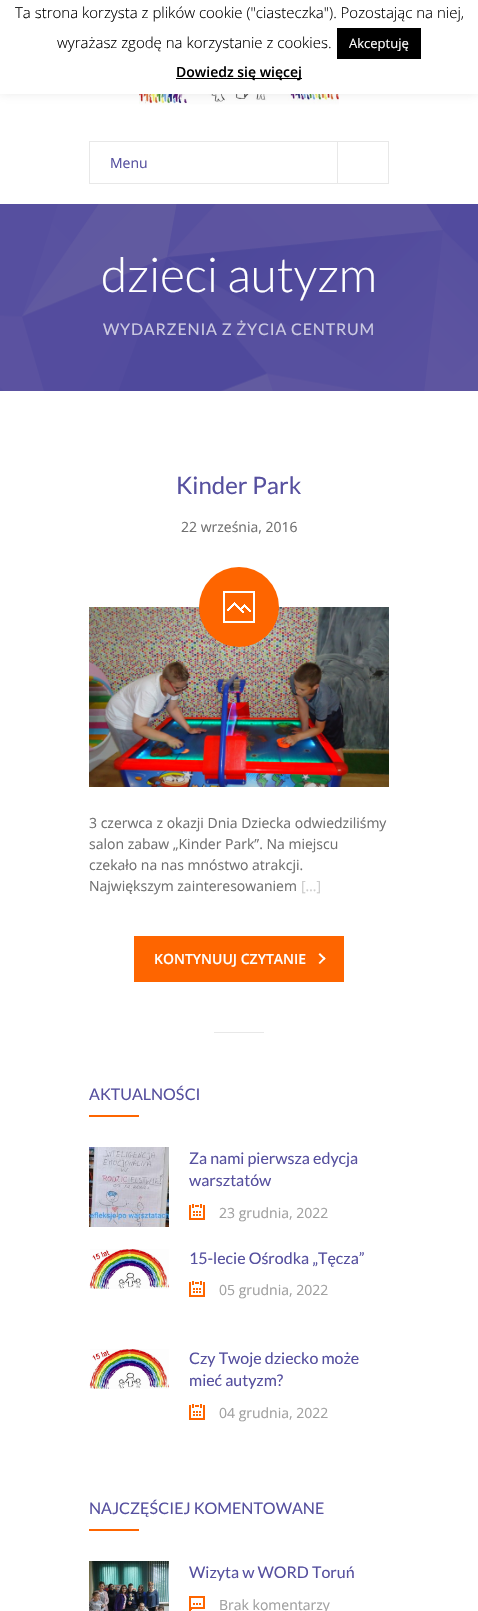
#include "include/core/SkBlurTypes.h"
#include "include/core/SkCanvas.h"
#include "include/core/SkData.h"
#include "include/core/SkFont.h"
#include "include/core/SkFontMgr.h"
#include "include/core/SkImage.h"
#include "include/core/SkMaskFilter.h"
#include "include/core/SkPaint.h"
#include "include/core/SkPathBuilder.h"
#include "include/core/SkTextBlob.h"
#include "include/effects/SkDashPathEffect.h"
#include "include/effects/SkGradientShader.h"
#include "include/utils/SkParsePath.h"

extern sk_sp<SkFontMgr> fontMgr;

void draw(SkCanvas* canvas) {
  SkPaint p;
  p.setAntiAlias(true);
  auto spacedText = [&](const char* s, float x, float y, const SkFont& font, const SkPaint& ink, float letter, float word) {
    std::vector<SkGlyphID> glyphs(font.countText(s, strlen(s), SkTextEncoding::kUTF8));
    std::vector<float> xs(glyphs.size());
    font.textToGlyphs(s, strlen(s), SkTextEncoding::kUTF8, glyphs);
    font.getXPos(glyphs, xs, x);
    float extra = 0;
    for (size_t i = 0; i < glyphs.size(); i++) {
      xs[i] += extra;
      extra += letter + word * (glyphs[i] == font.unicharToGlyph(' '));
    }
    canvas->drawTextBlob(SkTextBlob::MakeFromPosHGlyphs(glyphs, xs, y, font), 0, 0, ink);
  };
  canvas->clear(SK_ColorWHITE);
  canvas->drawImageRect(SkImages::DeferredFromEncodedData(SkData::MakeFromFileName("images/1.png")), SkRect::MakeLTRB(139, 94, 339, 105), SkSamplingOptions());
  p.setColor(SkColorSetARGB(77, 172, 171, 171));
  p.setMaskFilter(SkMaskFilter::MakeBlur(kNormal_SkBlurStyle, 5));
  canvas->drawRect(SkRect::MakeLTRB(0, -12, 478, 93), p);
  p.setMaskFilter(nullptr);
  p.setColor(SK_ColorWHITE);
  canvas->drawRect(SkRect::MakeLTRB(0, 0, 478, 94), p);
  p.setColor(SK_ColorBLACK);
  canvas->drawRect(SkRect::MakeLTRB(337, 28, 421, 59), p);
  canvas->drawRect(SkRect::MakeLTRB(176, 78, 302, 79), p);
  p.setStyle(SkPaint::kStroke_Style);
  p.setStrokeWidth(1);
  p.setColor(SkColorSetRGB(232, 232, 232));
  canvas->drawRect(SkRect::MakeLTRB(89.5f, 141.5f, 388.5f, 183.5f), p);
  p.setStyle(SkPaint::kFill_Style);
  canvas->drawRect(SkRect::MakeLTRB(337, 142, 338, 183), p);
  canvas->drawImageRect(SkImages::DeferredFromEncodedData(SkData::MakeFromFileName("images/2.png")), SkRect::MakeLTRB(0, 204, 478, 391), SkSamplingOptions());
  canvas->drawImageRect(SkImages::DeferredFromEncodedData(SkData::MakeFromFileName("images/4.png")), SkRect::MakeLTRB(89, 607, 389, 787), SkSamplingOptions());
  p.setColor(SkColorSetRGB(254, 101, 0));
  canvas->drawCircle(239, 607, 40, p);
  canvas->drawImageRect(SkImages::DeferredFromEncodedData(SkData::MakeFromFileName("images/3.png")), SkRect::MakeLTRB(223, 591, 255, 623), SkSamplingOptions());
  canvas->drawRect(SkRect::MakeLTRB(134, 936, 344, 982), p);
  p.setColor(SK_ColorWHITE);
  canvas->drawPath(SkPathBuilder().moveTo(320, 953).lineTo(325.5f, 958.5f).lineTo(324.5f, 960).lineTo(318.5f, 954.5f).close().detach(), p);
  canvas->drawPath(SkPathBuilder().moveTo(324.5f, 957).lineTo(325.5f, 958.5f).lineTo(320, 964).lineTo(318.5f, 963).close().detach(), p);
  p.setColor(SkColorSetRGB(232, 232, 232));
  canvas->drawRect(SkRect::MakeLTRB(214, 1032, 264, 1033), p);
  p.setColor(SkColorSetRGB(254, 101, 0));
  canvas->drawRect(SkRect::MakeLTRB(89, 1115, 139, 1117), p);
  canvas->drawImageRect(SkImages::DeferredFromEncodedData(SkData::MakeFromFileName("images/5.png")), SkRect::MakeLTRB(89, 1147, 169, 1227), SkSamplingOptions());
  canvas->drawImageRect(SkImages::DeferredFromEncodedData(SkData::MakeFromFileName("images/6.png")), SkRect::MakeLTRB(189, 1204, 205, 1220), SkSamplingOptions());
  canvas->drawImageRect(SkImages::DeferredFromEncodedData(SkData::MakeFromFileName("images/7.png")), SkRect::MakeLTRB(89, 1249, 169, 1289), SkSamplingOptions());
  canvas->drawImageRect(SkImages::DeferredFromEncodedData(SkData::MakeFromFileName("images/6.png")), SkRect::MakeLTRB(189, 1281, 205, 1297), SkSamplingOptions());
  canvas->drawImageRect(SkImages::DeferredFromEncodedData(SkData::MakeFromFileName("images/7.png")), SkRect::MakeLTRB(89, 1349, 169, 1389), SkSamplingOptions());
  canvas->drawImageRect(SkImages::DeferredFromEncodedData(SkData::MakeFromFileName("images/6.png")), SkRect::MakeLTRB(189, 1404, 205, 1420), SkSamplingOptions());
  canvas->drawRect(SkRect::MakeLTRB(89, 1529, 139, 1531), p);
  canvas->drawImageRect(SkImages::DeferredFromEncodedData(SkData::MakeFromFileName("images/8.png")), SkRect::MakeLTRB(89, 1561, 169, 1611), SkSamplingOptions());
  canvas->drawImageRect(SkImages::DeferredFromEncodedData(SkData::MakeFromFileName("images/9.png")), SkRect::MakeLTRB(189, 1596, 205, 1611), SkSamplingOptions());
  SkFont font1(fontMgr->matchFamilyStyle("Open Sans", SkFontStyle(300, SkFontStyle::kNormal_Width, SkFontStyle::kUpright_Slant)), 15);
  font1.setSubpixel(true);
  p.setColor(SK_ColorBLACK);
  canvas->drawString("Ta strona korzysta z plików cookie (\"ciasteczka\"). Pozostając na niej,", 15, 18, font1, p);
  canvas->drawString("wyrażasz zgodę na korzystanie z cookies.", 57, 48, font1, p);
  SkFont font2(fontMgr->matchFamilyStyle("Open Sans", SkFontStyle::Normal()), 13);
  font2.setSubpixel(true);
  p.setColor(SK_ColorWHITE);
  canvas->drawString("Akceptuję", 349, 48, font2, p);
  SkFont font3(fontMgr->matchFamilyStyle("Open Sans", SkFontStyle(600, SkFontStyle::kNormal_Width, SkFontStyle::kUpright_Slant)), 14);
  font3.setSubpixel(true);
  p.setColor(SK_ColorBLACK);
  canvas->drawString("Dowiedz się więcej", 176, 77, font3, p);
  SkFont font4(fontMgr->matchFamilyStyle("Open Sans", SkFontStyle::Normal()), 14);
  font4.setSubpixel(true);
  p.setColor(SkColorSetRGB(86, 80, 159));
  canvas->drawString("Menu", 110, 168, font4, p);
  SkFont font5(fontMgr->matchFamilyStyle("Lato", SkFontStyle(300, SkFontStyle::kNormal_Width, SkFontStyle::kUpright_Slant)), 48);
  font5.setSubpixel(true);
  p.setColor(SK_ColorWHITE);
  canvas->drawString("dzieci autyzm", 101, 292, font5, p);
  SkFont font6(fontMgr->matchFamilyStyle("Lato", SkFontStyle::Normal()), 16);
  font6.setSubpixel(true);
  p.setColor(SkColorSetRGB(204, 202, 226));
  spacedText("WYDARZENIA Z ŻYCIA CENTRUM", 103, 335, font6, p, 0.8f, 0);
  SkFont font7(fontMgr->matchFamilyStyle("Lato", SkFontStyle::Normal()), 24);
  font7.setSubpixel(true);
  p.setColor(SkColorSetRGB(86, 80, 159));
  canvas->drawString("Kinder Park", 176, 494, font7, p);
  p.setColor(SkColorSetRGB(112, 112, 112));
  canvas->drawString("22 września, 2016", 181, 532, font4, p);
  canvas->drawString("3 czerwca z okazji Dnia Dziecka odwiedziliśmy", 89, 828, font4, p);
  canvas->drawString("salon zabaw „Kinder Park”. Na miejscu", 89, 849, font4, p);
  canvas->drawString("czekało na nas mnóstwo atrakcji.", 89, 870, font4, p);
  canvas->drawString("Największym zainteresowaniem", 89, 891, font4, p);
  p.setColor(SkColorSetRGB(204, 204, 204));
  canvas->drawString("[…]", 301, 891, font4, p);
  p.setColor(SK_ColorWHITE);
  canvas->drawString("KONTYNUUJ CZYTANIE", 154, 964, font3, p);
  p.setColor(SkColorSetRGB(86, 80, 159));
  canvas->drawString("AKTUALNOŚCI", 89, 1100, font6, p);
  canvas->drawString("Za nami pierwsza edycja", 189, 1164, font6, p);
  canvas->drawString("warsztatów", 189, 1186, font6, p);
  p.setColor(SkColorSetRGB(160, 160, 160));
  canvas->drawString("23 grudnia, 2022", 219, 1218, font4, p);
  p.setColor(SkColorSetRGB(86, 80, 159));
  canvas->drawString("15-lecie Ośrodka „Tęcza”", 189, 1264, font6, p);
  p.setColor(SkColorSetRGB(160, 160, 160));
  canvas->drawString("05 grudnia, 2022", 219, 1295, font4, p);
  p.setColor(SkColorSetRGB(86, 80, 159));
  canvas->drawString("Czy Twoje dziecko może", 189, 1364, font6, p);
  canvas->drawString("mieć autyzm?", 189, 1386, font6, p);
  p.setColor(SkColorSetRGB(160, 160, 160));
  canvas->drawString("04 grudnia, 2022", 219, 1418, font4, p);
  p.setColor(SkColorSetRGB(86, 80, 159));
  canvas->drawString("NAJCZĘŚCIEJ KOMENTOWANE", 89, 1514, font6, p);
  canvas->drawString("Wizyta w WORD Toruń", 189, 1578, font6, p);
  p.setColor(SkColorSetRGB(160, 160, 160));
  canvas->drawString("Brak komentarzy", 219, 1610, font4, p);
}
